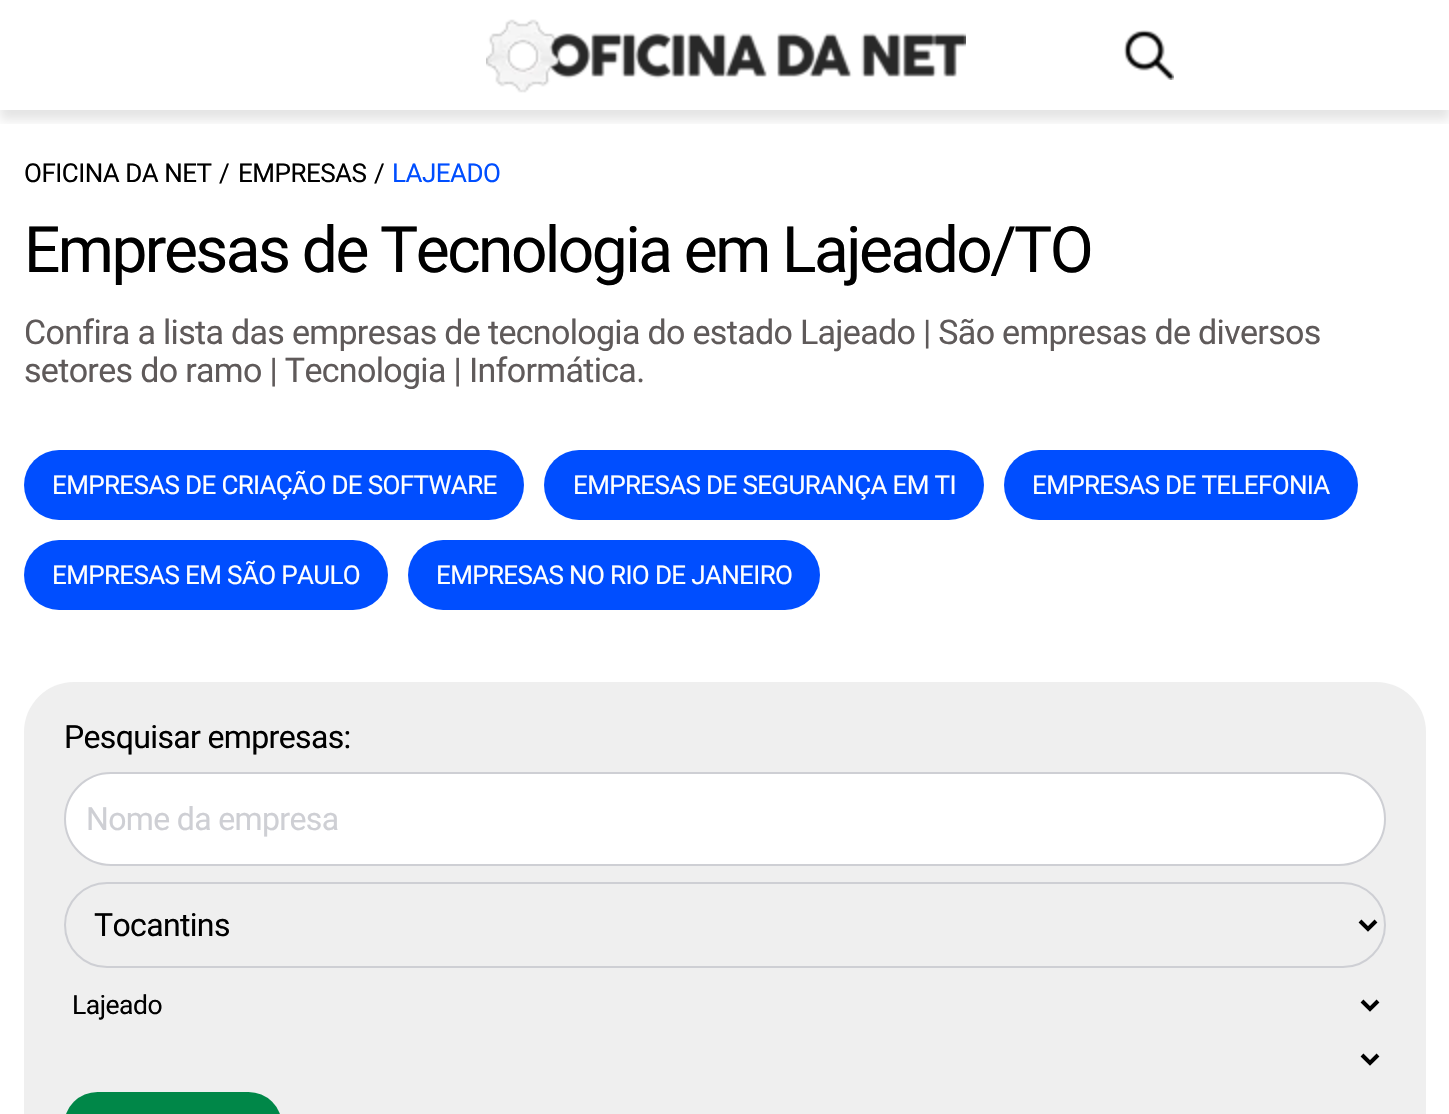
#include "include/core/SkBlurTypes.h"
#include "include/core/SkCanvas.h"
#include "include/core/SkData.h"
#include "include/core/SkFont.h"
#include "include/core/SkFontMgr.h"
#include "include/core/SkImage.h"
#include "include/core/SkMaskFilter.h"
#include "include/core/SkPaint.h"
#include "include/core/SkPathBuilder.h"
#include "include/core/SkTextBlob.h"
#include "include/effects/SkDashPathEffect.h"
#include "include/effects/SkGradientShader.h"
#include "include/utils/SkParsePath.h"

extern sk_sp<SkFontMgr> fontMgr;

void draw(SkCanvas* canvas) {
  SkPaint p;
  p.setAntiAlias(true);
  auto spacedText = [&](const char* s, float x, float y, const SkFont& font, const SkPaint& ink, float letter, float word) {
    std::vector<SkGlyphID> glyphs(font.countText(s, strlen(s), SkTextEncoding::kUTF8));
    std::vector<float> xs(glyphs.size());
    font.textToGlyphs(s, strlen(s), SkTextEncoding::kUTF8, glyphs);
    font.getXPos(glyphs, xs, x);
    float extra = 0;
    for (size_t i = 0; i < glyphs.size(); i++) {
      xs[i] += extra;
      extra += letter + word * (glyphs[i] == font.unicharToGlyph(' '));
    }
    canvas->drawTextBlob(SkTextBlob::MakeFromPosHGlyphs(glyphs, xs, y, font), 0, 0, ink);
  };
  canvas->clear(SK_ColorWHITE);
  canvas->save();
  canvas->clipRect(SkRect::MakeLTRB(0, 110, 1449, 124));
  p.setColor(SkColorSetARGB(26, 0, 0, 0));
  p.setMaskFilter(SkMaskFilter::MakeBlur(kNormal_SkBlurStyle, 5));
  canvas->drawRect(SkRect::MakeLTRB(0, 10, 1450, 120), p);
  p.setMaskFilter(nullptr);
  canvas->restore();
  canvas->drawImageRect(SkImages::DeferredFromEncodedData(SkData::MakeFromFileName("images/1.png")), SkRect::MakeLTRB(486, 19, 966, 93), SkSamplingOptions());
  canvas->drawImageRect(SkImages::DeferredFromEncodedData(SkData::MakeFromFileName("images/2.png")), SkRect::MakeLTRB(1124, 30, 1174, 80), SkSamplingOptions());
  p.setColor(SkColorSetRGB(0, 78, 255));
  canvas->drawRoundRect(SkRect::MakeLTRB(24, 450, 524, 520), 35, 35, p);
  canvas->drawRoundRect(SkRect::MakeLTRB(544, 450, 984, 520), 35, 35, p);
  canvas->drawRoundRect(SkRect::MakeLTRB(1004, 450, 1358, 520), 35, 35, p);
  canvas->drawRoundRect(SkRect::MakeLTRB(24, 540, 388, 610), 35, 35, p);
  canvas->drawRoundRect(SkRect::MakeLTRB(408, 540, 820, 610), 35, 35, p);
  p.setColor(SkColorSetRGB(239, 239, 239));
  canvas->drawRoundRect(SkRect::MakeLTRB(24, 682, 1426, 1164), 50, 50, p);
  p.setColor(SK_ColorWHITE);
  canvas->drawRoundRect(SkRect::MakeLTRB(65, 773, 1385, 865), 46, 46, p);
  p.setStyle(SkPaint::kStroke_Style);
  p.setStrokeWidth(2);
  p.setColor(SkColorSetRGB(206, 207, 212));
  canvas->drawRoundRect(SkRect::MakeLTRB(65, 773, 1385, 865), 46, 46, p);
  canvas->drawRoundRect(SkRect::MakeLTRB(65, 883, 1385, 967), 42, 42, p);
  p.setStrokeWidth(4);
  p.setColor(SK_ColorBLACK);
  canvas->drawPath(SkPathBuilder().moveTo(1360, 921).lineTo(1368, 929).lineTo(1376, 921).detach(), p);
  canvas->drawPath(SkPathBuilder().moveTo(1362, 1001).lineTo(1370, 1009).lineTo(1378, 1001).detach(), p);
  canvas->drawPath(SkPathBuilder().moveTo(1362, 1055).lineTo(1370, 1063).lineTo(1378, 1055).detach(), p);
  p.setStyle(SkPaint::kFill_Style);
  p.setColor(SkColorSetRGB(0, 135, 72));
  canvas->drawRoundRect(SkRect::MakeLTRB(64, 1092, 282, 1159), 45, 45, p);
  SkFont font1(fontMgr->matchFamilyStyle("Roboto", SkFontStyle::Normal()), 26);
  font1.setSubpixel(true);
  p.setColor(SK_ColorBLACK);
  spacedText("OFICINA DA NET", 24, 182, font1, p, -0.5f, 0);
  spacedText("/", 219, 182, font1, p, -0.5f, 0);
  spacedText("EMPRESAS", 238, 182, font1, p, -0.5f, 0);
  spacedText("/", 374, 182, font1, p, -0.5f, 0);
  p.setColor(SkColorSetRGB(0, 78, 255));
  spacedText("LAJEADO", 392, 182, font1, p, -0.5f, 0);
  SkFont font2(fontMgr->matchFamilyStyle("Roboto", SkFontStyle::Normal()), 64);
  font2.setSubpixel(true);
  p.setColor(SK_ColorBLACK);
  spacedText("Empresas de Tecnologia em Lajeado/TO", 24, 272, font2, p, -2.55f, 0);
  SkFont font3(fontMgr->matchFamilyStyle("Roboto", SkFontStyle::Normal()), 34);
  font3.setSubpixel(true);
  p.setColor(SkColorSetRGB(95, 90, 90));
  spacedText("Confira a lista das empresas de tecnologia do estado Lajeado | São empresas de diversos", 24, 344, font3, p, -0.68f, 0);
  spacedText("setores do ramo | Tecnologia | Informática.", 24, 382, font3, p, -0.68f, 0);
  p.setColor(SK_ColorWHITE);
  spacedText("EMPRESAS DE CRIAÇÃO DE SOFTWARE", 52, 494, font1, p, -0.65f, 0);
  spacedText("EMPRESAS DE SEGURANÇA EM TI", 573, 494, font1, p, -0.65f, 0);
  spacedText("EMPRESAS DE TELEFONIA", 1032, 494, font1, p, -0.65f, 0);
  spacedText("EMPRESAS EM SÃO PAULO", 52, 584, font1, p, -0.65f, 0);
  spacedText("EMPRESAS NO RIO DE JANEIRO", 436, 584, font1, p, -0.65f, 0);
  SkFont font4(fontMgr->matchFamilyStyle("Roboto", SkFontStyle::Normal()), 32);
  font4.setSubpixel(true);
  p.setColor(SK_ColorBLACK);
  spacedText("Pesquisar empresas:", 64, 748, font4, p, -0.65f, 0);
  p.setColor(SkColorSetRGB(206, 207, 212));
  spacedText("Nome da empresa", 86, 830, font4, p, -0.65f, 0);
  p.setColor(SK_ColorBLACK);
  spacedText("Tocantins", 94, 936, font4, p, -0.65f, 0);
  SkFont font5(fontMgr->matchFamilyStyle("Roboto", SkFontStyle::Normal()), 26.5f);
  font5.setSubpixel(true);
  spacedText("Lajeado", 72, 1014, font5, p, -0.5f, 0);
}
